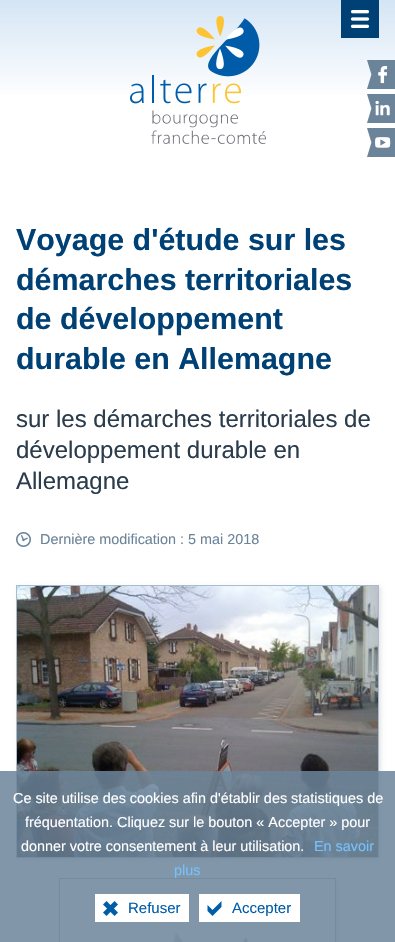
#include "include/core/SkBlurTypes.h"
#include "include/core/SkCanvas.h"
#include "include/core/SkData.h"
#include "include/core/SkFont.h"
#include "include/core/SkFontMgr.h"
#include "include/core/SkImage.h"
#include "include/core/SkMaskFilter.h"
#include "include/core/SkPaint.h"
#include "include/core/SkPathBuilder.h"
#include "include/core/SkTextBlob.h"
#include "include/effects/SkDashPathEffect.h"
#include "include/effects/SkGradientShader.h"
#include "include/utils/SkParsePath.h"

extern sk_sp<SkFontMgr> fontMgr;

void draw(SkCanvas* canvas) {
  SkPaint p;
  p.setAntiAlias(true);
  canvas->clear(SK_ColorWHITE);
  {
    const SkColor colors[] = {SkColorSetRGB(213, 229, 245), SK_ColorWHITE};
    const float stops[] = {0, 0.5f};
    const SkPoint ends[] = {{198, 0}, {198, 200}};
    p.setShader(SkGradientShader::MakeLinear(ends, colors, stops, 2, SkTileMode::kClamp));
    p.setAlpha(255);
  }
  canvas->drawRect(SkRect::MakeLTRB(0, 0, 395, 94), p);
  canvas->drawImageRect(SkImages::DeferredFromEncodedData(SkData::MakeFromFileName("images/1.png")), SkRect::MakeLTRB(130, 16, 266, 144), SkSamplingOptions());
  p.setShader(nullptr);
  p.setColor(SkColorSetRGB(0, 65, 117));
  canvas->drawRect(SkRect::MakeLTRB(341, 0, 379, 38), p);
  canvas->drawImageRect(SkImages::DeferredFromEncodedData(SkData::MakeFromFileName("images/2.png")), SkRect::MakeLTRB(350, 10, 370, 28), SkSamplingOptions());
  canvas->drawImageRect(SkImages::DeferredFromEncodedData(SkData::MakeFromFileName("images/3.png")), SkRect::MakeLTRB(367, 60, 395, 89), SkSamplingOptions());
  canvas->drawImageRect(SkImages::DeferredFromEncodedData(SkData::MakeFromFileName("images/4.png")), SkRect::MakeLTRB(367, 94, 395, 123), SkSamplingOptions());
  canvas->drawImageRect(SkImages::DeferredFromEncodedData(SkData::MakeFromFileName("images/5.png")), SkRect::MakeLTRB(367, 128, 395, 157), SkSamplingOptions());
  canvas->drawImageRect(SkImages::DeferredFromEncodedData(SkData::MakeFromFileName("images/6.png")), SkRect::MakeLTRB(16, 532, 31, 547), SkSamplingOptions());
  p.setColor(SkColorSetARGB(26, 0, 0, 0));
  p.setMaskFilter(SkMaskFilter::MakeBlur(kNormal_SkBlurStyle, 2));
  canvas->drawRect(SkRect::MakeLTRB(18, 587, 381, 860), p);
  p.setMaskFilter(nullptr);
  p.setStyle(SkPaint::kStroke_Style);
  p.setStrokeWidth(1);
  p.setColor(SkColorSetRGB(168, 188, 207));
  canvas->drawRect(SkRect::MakeLTRB(16.5f, 585.5f, 378.5f, 857.5f), p);
  canvas->drawImageRect(SkImages::DeferredFromEncodedData(SkData::MakeFromFileName("images/7.png")), SkRect::MakeLTRB(17, 586, 378, 857), SkSamplingOptions());
  canvas->save();
  canvas->clipRect(SkRect::MakeLTRB(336, 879, 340, 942));
  p.setStyle(SkPaint::kFill_Style);
  p.setColor(SkColorSetARGB(26, 0, 0, 0));
  p.setMaskFilter(SkMaskFilter::MakeBlur(kNormal_SkBlurStyle, 2));
  canvas->drawRect(SkRect::MakeLTRB(61, 880, 338, 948), p);
  p.setMaskFilter(nullptr);
  canvas->restore();
  p.setStyle(SkPaint::kStroke_Style);
  p.setColor(SkColorSetRGB(168, 188, 207));
  canvas->drawRect(SkRect::MakeLTRB(59.5f, 878.5f, 335.5f, 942.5f), p);
  canvas->drawImageRect(SkImages::DeferredFromEncodedData(SkData::MakeFromFileName("images/8.png")), SkRect::MakeLTRB(173, 932, 251, 942), SkSamplingOptions());
  p.setStyle(SkPaint::kFill_Style);
  p.setColor(SkColorSetARGB(217, 107, 132, 153));
  canvas->drawRect(SkRect::MakeLTRB(0, 771, 395, 942), p);
  p.setColor(SK_ColorWHITE);
  canvas->drawRect(SkRect::MakeLTRB(95, 894, 189, 922), p);
  canvas->drawImageRect(SkImages::DeferredFromEncodedData(SkData::MakeFromFileName("images/9.png")), SkRect::MakeLTRB(103, 901, 118, 916), SkSamplingOptions());
  canvas->drawRect(SkRect::MakeLTRB(199, 894, 300, 922), p);
  canvas->drawImageRect(SkImages::DeferredFromEncodedData(SkData::MakeFromFileName("images/10.png")), SkRect::MakeLTRB(207, 901, 222, 916), SkSamplingOptions());
  SkFont font1(fontMgr->matchFamilyStyle("Liberation Sans", SkFontStyle::Bold()), 30.4f);
  font1.setSubpixel(true);
  p.setColor(SkColorSetRGB(0, 65, 117));
  canvas->drawString("Voyage d'étude sur les", 16, 250, font1, p);
  canvas->drawString("démarches territoriales", 16, 290, font1, p);
  canvas->drawString("de développement", 16, 329, font1, p);
  canvas->drawString("durable en Allemagne", 16, 369, font1, p);
  SkFont font2(fontMgr->matchFamilyStyle("Liberation Sans", SkFontStyle::Normal()), 24);
  font2.setSubpixel(true);
  p.setColor(SkColorSetRGB(43, 60, 77));
  canvas->drawString("sur les démarches territoriales de", 16, 427, font2, p);
  canvas->drawString("développement durable en", 16, 458, font2, p);
  canvas->drawString("Allemagne", 16, 489, font2, p);
  SkFont font3(fontMgr->matchFamilyStyle("Liberation Sans", SkFontStyle::Normal()), 14.4f);
  font3.setSubpixel(true);
  p.setColor(SkColorSetRGB(107, 132, 153));
  canvas->drawString("Dernière modification : 5 mai 2018", 40, 544, font3, p);
  p.setColor(SK_ColorWHITE);
  canvas->drawString("Ce site utilise des cookies afin d'établir des statistiques de", 13, 803, font3, p);
  canvas->drawString("fréquentation. Cliquez sur le bouton « Accepter » pour", 25, 827, font3, p);
  canvas->drawString("donner votre consentement à leur utilisation.", 21, 851, font3, p);
  p.setColor(SkColorSetRGB(117, 193, 255));
  canvas->drawString("En savoir", 314, 851, font3, p);
  canvas->drawString("plus", 174, 875, font3, p);
  SkFont font4(fontMgr->matchFamilyStyle("Liberation Sans", SkFontStyle::Normal()), 15);
  font4.setSubpixel(true);
  p.setColor(SkColorSetRGB(0, 93, 168));
  canvas->drawString("Refuser", 128, 913, font4, p);
  canvas->drawString("Accepter", 232, 913, font4, p);
}
